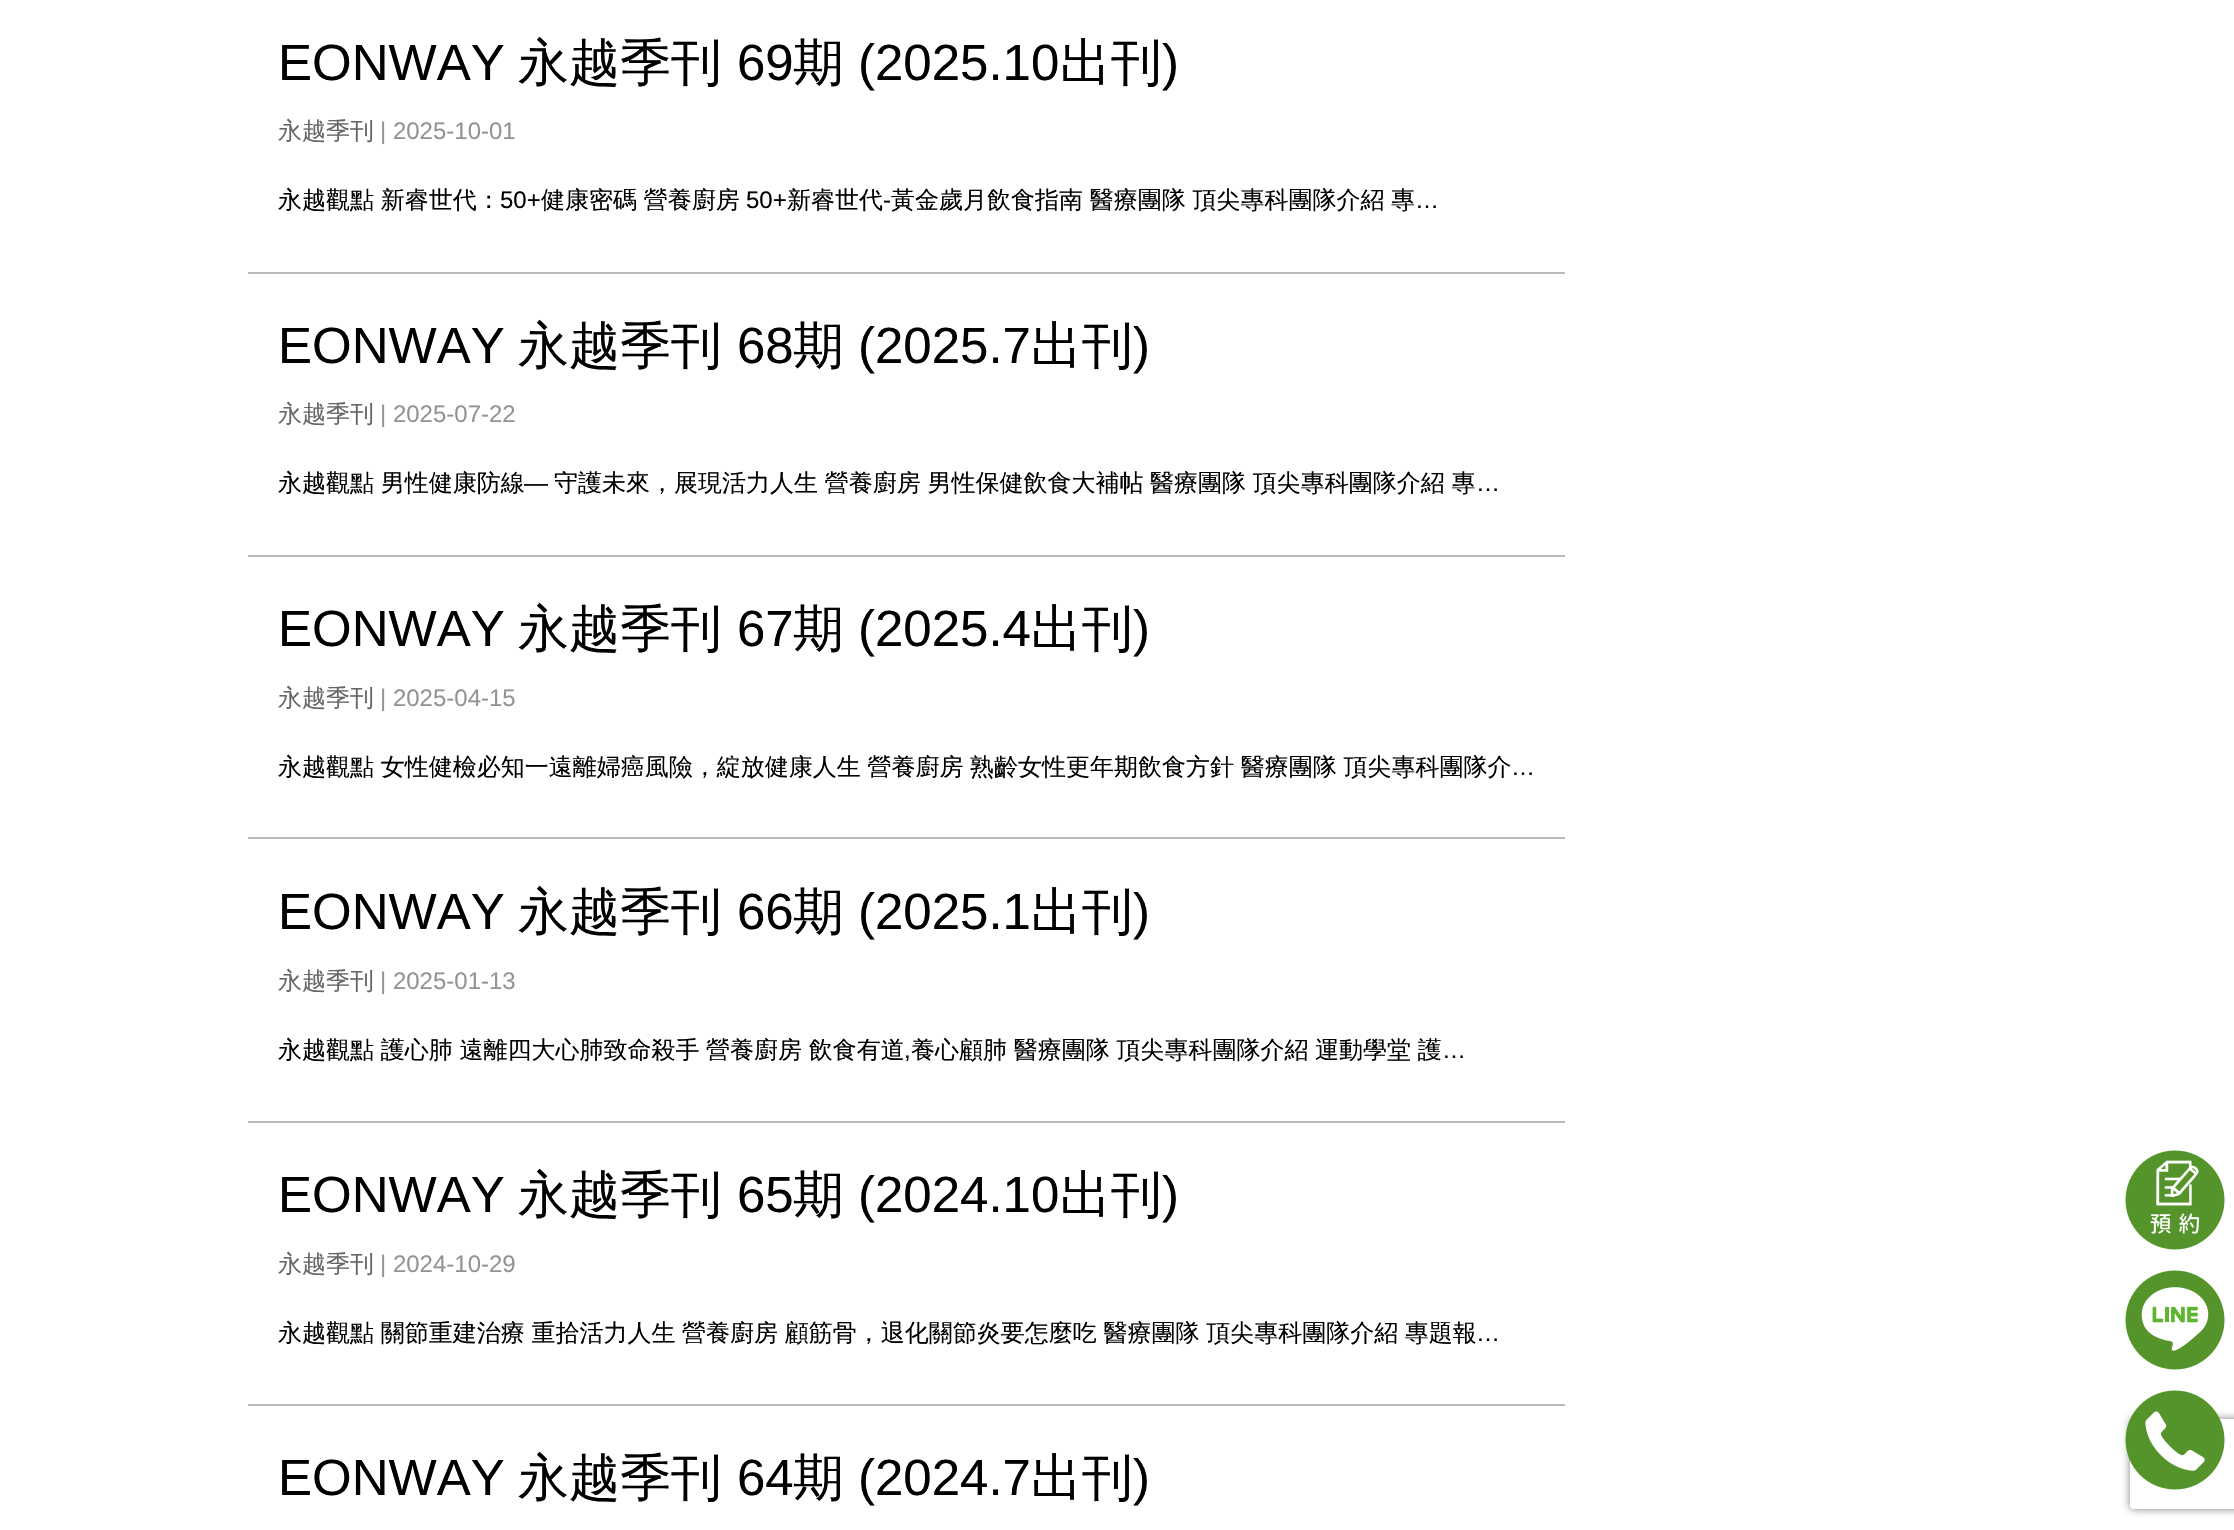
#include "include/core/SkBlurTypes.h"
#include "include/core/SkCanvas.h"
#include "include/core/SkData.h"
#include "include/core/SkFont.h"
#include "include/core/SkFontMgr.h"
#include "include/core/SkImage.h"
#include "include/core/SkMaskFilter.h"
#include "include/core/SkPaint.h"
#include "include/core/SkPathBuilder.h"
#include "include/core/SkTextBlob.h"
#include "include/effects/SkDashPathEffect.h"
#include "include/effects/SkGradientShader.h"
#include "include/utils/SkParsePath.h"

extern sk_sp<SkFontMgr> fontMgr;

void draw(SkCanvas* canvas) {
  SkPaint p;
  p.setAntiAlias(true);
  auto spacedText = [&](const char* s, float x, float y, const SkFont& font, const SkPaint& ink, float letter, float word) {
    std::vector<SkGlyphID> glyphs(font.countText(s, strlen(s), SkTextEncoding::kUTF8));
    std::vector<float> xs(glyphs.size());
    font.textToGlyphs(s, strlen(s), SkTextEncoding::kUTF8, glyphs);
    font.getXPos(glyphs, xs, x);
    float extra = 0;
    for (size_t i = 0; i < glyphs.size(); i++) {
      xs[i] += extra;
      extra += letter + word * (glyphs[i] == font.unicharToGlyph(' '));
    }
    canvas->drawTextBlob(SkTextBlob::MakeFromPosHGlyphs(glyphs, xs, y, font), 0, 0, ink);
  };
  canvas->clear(SK_ColorWHITE);
  p.setColor(SkColorSetRGB(184, 185, 185));
  canvas->drawRect(SkRect::MakeLTRB(248, 272, 1565, 274), p);
  canvas->drawRect(SkRect::MakeLTRB(248, 555, 1565, 557), p);
  canvas->drawRect(SkRect::MakeLTRB(248, 837, 1565, 839), p);
  canvas->drawRect(SkRect::MakeLTRB(248, 1121, 1565, 1123), p);
  canvas->drawRect(SkRect::MakeLTRB(248, 1404, 1565, 1406), p);
  canvas->drawImageRect(SkImages::DeferredFromEncodedData(SkData::MakeFromFileName("images/1.png")), SkRect::MakeLTRB(2125, 1150, 2225, 1250), SkSamplingOptions());
  canvas->drawImageRect(SkImages::DeferredFromEncodedData(SkData::MakeFromFileName("images/2.png")), SkRect::MakeLTRB(2125, 1270, 2225, 1370), SkSamplingOptions());
  canvas->save();
  canvas->clipPath(SkPathBuilder(SkPathFillType::kEvenOdd).moveTo(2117, 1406).lineTo(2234, 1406).lineTo(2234, 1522).lineTo(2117, 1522).close().moveTo(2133, 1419).lineTo(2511, 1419).cubicTo(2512.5f, 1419, 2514, 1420.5f, 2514, 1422).lineTo(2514, 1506).cubicTo(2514, 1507.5f, 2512.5f, 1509, 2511, 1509).lineTo(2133, 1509).cubicTo(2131.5f, 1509, 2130, 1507.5f, 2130, 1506).lineTo(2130, 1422).cubicTo(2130, 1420.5f, 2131.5f, 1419, 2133, 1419).close().detach(), true);
  p.setColor(SkColorSetRGB(128, 128, 128));
  p.setMaskFilter(SkMaskFilter::MakeBlur(kNormal_SkBlurStyle, 4));
  canvas->drawRoundRect(SkRect::MakeLTRB(2130, 1419, 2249, 1509), 3, 3, p);
  p.setMaskFilter(nullptr);
  canvas->restore();
  canvas->drawImageRect(SkImages::DeferredFromEncodedData(SkData::MakeFromFileName("images/3.png")), SkRect::MakeLTRB(2125, 1390, 2225, 1490), SkSamplingOptions());
  SkFont font1(fontMgr->matchFamilyStyle("Liberation Sans", SkFontStyle::Normal()), 51);
  font1.setSubpixel(true);
  p.setColor(SK_ColorBLACK);
  canvas->drawString("EONWAY", 278, 80, font1, p);
  SkFont font2(fontMgr->matchFamilyStyle("WenQuanYi Zen Hei", SkFontStyle(500, SkFontStyle::kNormal_Width, SkFontStyle::kUpright_Slant)), 51);
  font2.setSubpixel(true);
  canvas->drawString("永越季刊", 518, 80, font2, p);
  canvas->drawString("69", 737, 80, font1, p);
  canvas->drawString("期", 793, 80, font2, p);
  canvas->drawString("(2025.10", 858, 80, font1, p);
  canvas->drawString("出刊", 1060, 80, font2, p);
  canvas->drawString(")", 1162, 80, font1, p);
  SkFont font3(fontMgr->matchFamilyStyle("WenQuanYi Zen Hei", SkFontStyle(500, SkFontStyle::kNormal_Width, SkFontStyle::kUpright_Slant)), 24);
  font3.setSubpixel(true);
  p.setColor(SkColorSetRGB(102, 102, 102));
  canvas->drawString("永越季刊", 278, 139, font3, p);
  SkFont font4(fontMgr->matchFamilyStyle("Liberation Sans", SkFontStyle::Normal()), 24);
  font4.setSubpixel(true);
  p.setColor(SkColorSetRGB(147, 147, 147));
  canvas->drawString("| 2025-10-01", 380, 139, font4, p);
  p.setColor(SK_ColorBLACK);
  spacedText("永越觀點 新睿世代：", 278, 208, font3, p, 0, -0.5f);
  canvas->drawString("50+", 500, 208, font4, p);
  spacedText("健康密碼 營養廚房", 541, 208, font3, p, 0, -0.5f);
  canvas->drawString("50+", 746, 208, font4, p);
  canvas->drawString("新睿世代", 787, 208, font3, p);
  canvas->drawString("-", 883, 208, font4, p);
  spacedText("黃金歲月飲食指南 醫療團隊 頂尖專科團隊介紹 專", 891, 208, font3, p, 0, -0.5f);
  canvas->drawString("…", 1415, 208, font4, p);
  canvas->drawString("EONWAY", 278, 363, font1, p);
  canvas->drawString("永越季刊", 518, 363, font2, p);
  canvas->drawString("68", 737, 363, font1, p);
  canvas->drawString("期", 793, 363, font2, p);
  canvas->drawString("(2025.7", 858, 363, font1, p);
  canvas->drawString("出刊", 1031, 363, font2, p);
  canvas->drawString(")", 1133, 363, font1, p);
  p.setColor(SkColorSetRGB(102, 102, 102));
  canvas->drawString("永越季刊", 278, 422, font3, p);
  p.setColor(SkColorSetRGB(147, 147, 147));
  canvas->drawString("| 2025-07-22", 380, 422, font4, p);
  p.setColor(SK_ColorBLACK);
  spacedText("永越觀點 男性健康防線", 278, 491, font3, p, 0, -0.5f);
  canvas->drawString("—", 524, 491, font4, p);
  spacedText("守護未來，展現活力人生 營養廚房 男性保健飲食大補帖 醫療團隊 頂尖專科團隊介紹 專", 554, 491, font3, p, 0, -0.5f);
  canvas->drawString("…", 1476, 491, font4, p);
  canvas->drawString("EONWAY", 278, 646, font1, p);
  canvas->drawString("永越季刊", 518, 646, font2, p);
  canvas->drawString("67", 737, 646, font1, p);
  canvas->drawString("期", 793, 646, font2, p);
  canvas->drawString("(2025.4", 858, 646, font1, p);
  canvas->drawString("出刊", 1031, 646, font2, p);
  canvas->drawString(")", 1133, 646, font1, p);
  p.setColor(SkColorSetRGB(102, 102, 102));
  canvas->drawString("永越季刊", 278, 706, font3, p);
  p.setColor(SkColorSetRGB(147, 147, 147));
  canvas->drawString("| 2025-04-15", 380, 706, font4, p);
  p.setColor(SK_ColorBLACK);
  spacedText("永越觀點 女性健檢必知一遠離婦癌風險，綻放健康人生 營養廚房 熟齡女性更年期飲食方針 醫療團隊 頂尖專科團隊介", 278, 775, font3, p, 0, -0.5f);
  canvas->drawString("…", 1511, 775, font4, p);
  canvas->drawString("EONWAY", 278, 929, font1, p);
  canvas->drawString("永越季刊", 518, 929, font2, p);
  canvas->drawString("66", 737, 929, font1, p);
  canvas->drawString("期", 793, 929, font2, p);
  canvas->drawString("(2025.1", 858, 929, font1, p);
  canvas->drawString("出刊", 1031, 929, font2, p);
  canvas->drawString(")", 1133, 929, font1, p);
  p.setColor(SkColorSetRGB(102, 102, 102));
  canvas->drawString("永越季刊", 278, 989, font3, p);
  p.setColor(SkColorSetRGB(147, 147, 147));
  canvas->drawString("| 2025-01-13", 380, 989, font4, p);
  p.setColor(SK_ColorBLACK);
  spacedText("永越觀點 護心肺 遠離四大心肺致命殺手 營養廚房 飲食有道", 278, 1058, font3, p, 0, -0.5f);
  canvas->drawString(",", 904, 1058, font4, p);
  spacedText("養心顧肺 醫療團隊 頂尖專科團隊介紹 運動學堂 護", 911, 1058, font3, p, 0, -0.5f);
  canvas->drawString("…", 1442, 1058, font4, p);
  canvas->drawString("EONWAY", 278, 1212, font1, p);
  canvas->drawString("永越季刊", 518, 1212, font2, p);
  canvas->drawString("65", 737, 1212, font1, p);
  canvas->drawString("期", 793, 1212, font2, p);
  canvas->drawString("(2024.10", 858, 1212, font1, p);
  canvas->drawString("出刊", 1060, 1212, font2, p);
  canvas->drawString(")", 1162, 1212, font1, p);
  p.setColor(SkColorSetRGB(102, 102, 102));
  canvas->drawString("永越季刊", 278, 1272, font3, p);
  p.setColor(SkColorSetRGB(147, 147, 147));
  canvas->drawString("| 2024-10-29", 380, 1272, font4, p);
  p.setColor(SK_ColorBLACK);
  spacedText("永越觀點 關節重建治療 重拾活力人生 營養廚房 顧筋骨，退化關節炎要怎麼吃 醫療團隊 頂尖專科團隊介紹 專題報", 278, 1341, font3, p, 0, -0.5f);
  canvas->drawString("…", 1476, 1341, font4, p);
  canvas->drawString("EONWAY", 278, 1495, font1, p);
  canvas->drawString("永越季刊", 518, 1495, font2, p);
  canvas->drawString("64", 737, 1495, font1, p);
  canvas->drawString("期", 793, 1495, font2, p);
  canvas->drawString("(2024.7", 858, 1495, font1, p);
  canvas->drawString("出刊", 1031, 1495, font2, p);
  canvas->drawString(")", 1133, 1495, font1, p);
}
